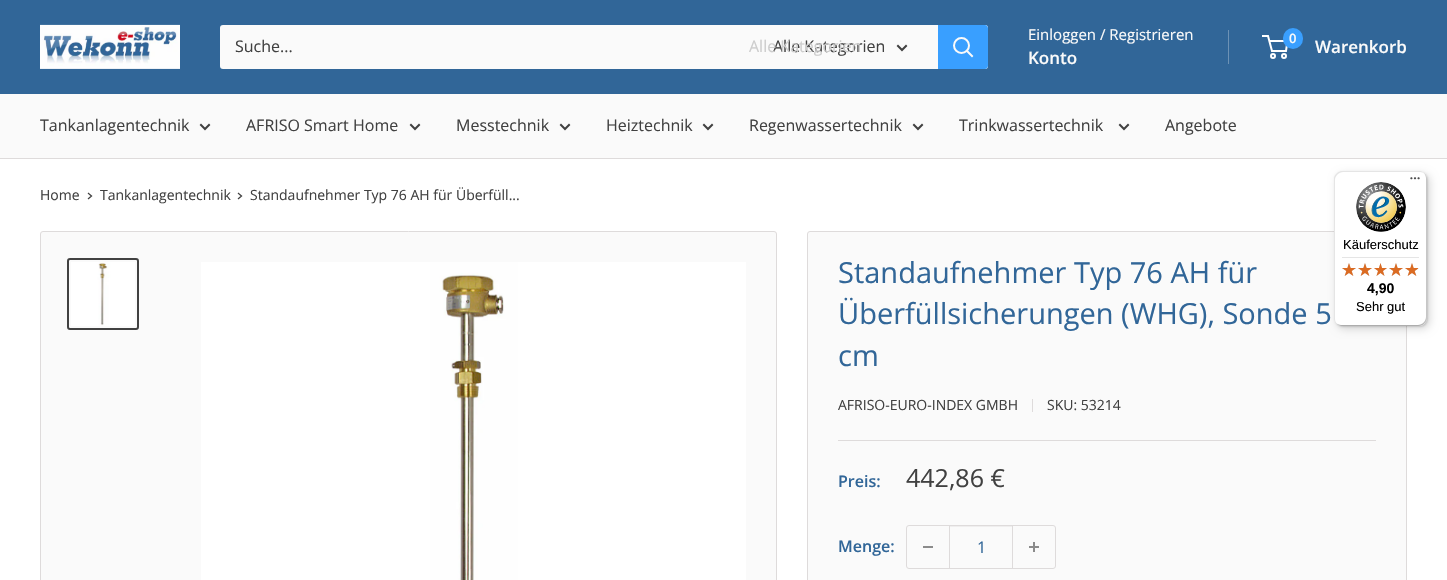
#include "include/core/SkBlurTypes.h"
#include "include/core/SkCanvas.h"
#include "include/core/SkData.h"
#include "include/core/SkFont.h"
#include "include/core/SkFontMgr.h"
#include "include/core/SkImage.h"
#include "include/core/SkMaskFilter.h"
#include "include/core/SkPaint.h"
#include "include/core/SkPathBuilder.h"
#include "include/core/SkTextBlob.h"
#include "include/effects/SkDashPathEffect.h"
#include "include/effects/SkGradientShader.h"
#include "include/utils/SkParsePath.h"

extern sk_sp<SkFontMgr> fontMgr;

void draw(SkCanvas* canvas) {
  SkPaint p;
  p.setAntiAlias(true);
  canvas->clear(SK_ColorWHITE);
  p.setColor(SkColorSetRGB(49, 102, 152));
  canvas->drawRect(SkRect::MakeLTRB(0, 0, 1447, 94), p);
  canvas->drawImageRect(SkImages::DeferredFromEncodedData(SkData::MakeFromFileName("images/1.png")), SkRect::MakeLTRB(40, 24, 180, 69), SkSamplingOptions());
  p.setColor(SkColorSetRGB(250, 250, 250));
  canvas->drawRoundRect(SkRect::MakeLTRB(220, 25, 988, 69), 3, 3, p);
  p.setStyle(SkPaint::kStroke_Style);
  p.setStrokeWidth(2);
  p.setStrokeCap(SkPaint::kSquare_Cap);
  p.setColor(SkColorSetRGB(65, 65, 65));
  canvas->drawPath(SkPathBuilder().moveTo(906, 46).lineTo(902, 50).lineTo(898, 46).detach(), p);
  p.setStyle(SkPaint::kFill_Style);
  p.setColor(SkColorSetRGB(57, 159, 255));
  canvas->drawPath(SkPathBuilder().moveTo(938, 25).lineTo(985, 25).cubicTo(986.5f, 25, 988, 26.5f, 988, 28).lineTo(988, 66).cubicTo(988, 67.5f, 986.5f, 69, 985, 69).lineTo(938, 69).close().detach(), p);
  p.setStyle(SkPaint::kStroke_Style);
  p.setColor(SkColorSetRGB(250, 250, 250));
  canvas->drawPath(SkPathBuilder().moveTo(972, 56).lineTo(967, 51).detach(), p);
  p.setStrokeCap(SkPaint::kButt_Cap);
  canvas->drawCircle(961.5f, 45.5f, 7.5f, p);
  p.setStyle(SkPaint::kFill_Style);
  p.setColor(SkColorSetRGB(109, 146, 181));
  canvas->drawRect(SkRect::MakeLTRB(1228, 30, 1229, 64), p);
  p.setStyle(SkPaint::kStroke_Style);
  p.setColor(SK_ColorWHITE);
  canvas->drawCircle(1273, 56, 2, p);
  canvas->drawCircle(1284, 56, 2, p);
  canvas->drawPath(SkPathBuilder().moveTo(1269.5f, 41).lineTo(1287.5f, 41).lineTo(1286, 51).lineTo(1272, 51).lineTo(1268, 36).lineTo(1262, 36).detach(), p);
  p.setStyle(SkPaint::kFill_Style);
  p.setColor(SkColorSetRGB(57, 159, 255));
  canvas->drawRoundRect(SkRect::MakeLTRB(1283, 28, 1303, 49), 10, 10, p);
  p.setColor(SkColorSetRGB(250, 250, 250));
  canvas->drawRect(SkRect::MakeLTRB(0, 94, 1447, 158), p);
  p.setColor(SkColorSetRGB(222, 219, 219));
  canvas->drawRect(SkRect::MakeLTRB(0, 158, 1447, 159), p);
  p.setStyle(SkPaint::kStroke_Style);
  p.setStrokeCap(SkPaint::kSquare_Cap);
  p.setColor(SkColorSetRGB(65, 65, 65));
  canvas->drawPath(SkPathBuilder().moveTo(209, 125).lineTo(205, 129).lineTo(201, 125).detach(), p);
  canvas->drawPath(SkPathBuilder().moveTo(419, 125).lineTo(415, 129).lineTo(411, 125).detach(), p);
  canvas->drawPath(SkPathBuilder().moveTo(569, 125).lineTo(565, 129).lineTo(561, 125).detach(), p);
  canvas->drawPath(SkPathBuilder().moveTo(712, 125).lineTo(708, 129).lineTo(704, 125).detach(), p);
  canvas->drawPath(SkPathBuilder().moveTo(922, 125).lineTo(918, 129).lineTo(914, 125).detach(), p);
  canvas->drawPath(SkPathBuilder().moveTo(1128, 125).lineTo(1124, 129).lineTo(1120, 125).detach(), p);
  p.setStrokeWidth(1.3f);
  canvas->drawPath(SkPathBuilder().moveTo(88.5f, 193.5f).lineTo(91.5f, 196).lineTo(88.5f, 198.5f).detach(), p);
  canvas->drawPath(SkPathBuilder().moveTo(238.5f, 193.5f).lineTo(241.5f, 196).lineTo(238.5f, 198.5f).detach(), p);
  p.setStyle(SkPaint::kFill_Style);
  p.setColor(SkColorSetRGB(250, 250, 250));
  canvas->drawRoundRect(SkRect::MakeLTRB(40.5f, 231.5f, 776.5f, 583.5f), 2.5f, 2.5f, p);
  p.setStyle(SkPaint::kStroke_Style);
  p.setStrokeWidth(1);
  p.setStrokeCap(SkPaint::kButt_Cap);
  p.setColor(SkColorSetRGB(222, 219, 219));
  canvas->drawRoundRect(SkRect::MakeLTRB(40.5f, 231.5f, 776.5f, 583.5f), 2.5f, 2.5f, p);
  p.setStrokeWidth(2);
  p.setColor(SkColorSetRGB(65, 65, 65));
  canvas->drawRoundRect(SkRect::MakeLTRB(68, 259, 138, 329), 2, 2, p);
  canvas->drawImageRect(SkImages::DeferredFromEncodedData(SkData::MakeFromFileName("images/2.png")), SkRect::MakeLTRB(71, 262, 135, 326), SkSamplingOptions());
  canvas->drawImageRect(SkImages::DeferredFromEncodedData(SkData::MakeFromFileName("images/3.png")), SkRect::MakeLTRB(201, 262, 746, 580), SkSamplingOptions());
  p.setStyle(SkPaint::kFill_Style);
  p.setColor(SkColorSetRGB(250, 250, 250));
  canvas->drawRoundRect(SkRect::MakeLTRB(807.5f, 231.5f, 1406.5f, 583.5f), 2.5f, 2.5f, p);
  p.setStyle(SkPaint::kStroke_Style);
  p.setStrokeWidth(1);
  p.setColor(SkColorSetRGB(222, 219, 219));
  canvas->drawRoundRect(SkRect::MakeLTRB(807.5f, 231.5f, 1406.5f, 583.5f), 2.5f, 2.5f, p);
  p.setStyle(SkPaint::kFill_Style);
  canvas->drawRect(SkRect::MakeLTRB(1032, 399, 1033, 412), p);
  canvas->drawRect(SkRect::MakeLTRB(838, 440, 1376, 441), p);
  p.setStyle(SkPaint::kStroke_Style);
  canvas->drawRoundRect(SkRect::MakeLTRB(906.5f, 525.5f, 1055.5f, 568.5f), 2.5f, 2.5f, p);
  p.setStyle(SkPaint::kFill_Style);
  p.setColor(SkColorSetRGB(139, 139, 139));
  canvas->drawRect(SkRect::MakeLTRB(923, 546, 933, 548), p);
  p.setColor(SkColorSetRGB(239, 238, 238));
  canvas->drawRect(SkRect::MakeLTRB(950, 526, 1012, 527), p);
  p.setColor(SkColorSetRGB(222, 219, 219));
  canvas->drawRect(SkRect::MakeLTRB(1012, 526, 1013, 568), p);
  canvas->drawRect(SkRect::MakeLTRB(949, 526, 950, 568), p);
  canvas->drawImageRect(SkImages::DeferredFromEncodedData(SkData::MakeFromFileName("images/4.png")), SkRect::MakeLTRB(1029, 542, 1039, 552), SkSamplingOptions());
  p.setColor(SkColorSetARGB(38, 0, 0, 0));
  p.setMaskFilter(SkMaskFilter::MakeBlur(kNormal_SkBlurStyle, 4));
  canvas->drawRoundRect(SkRect::MakeLTRB(1337, 174, 1430, 329), 8, 8, p);
  p.setMaskFilter(nullptr);
  p.setMaskFilter(SkMaskFilter::MakeBlur(kNormal_SkBlurStyle, 1));
  canvas->drawRoundRect(SkRect::MakeLTRB(1335, 172, 1428, 327), 8, 8, p);
  p.setMaskFilter(nullptr);
  p.setColor(SK_ColorWHITE);
  canvas->drawRoundRect(SkRect::MakeLTRB(1334, 171, 1427, 326), 8, 8, p);
  p.setColor(SkColorSetARGB(26, 0, 0, 0));
  canvas->drawPath(SkPathBuilder().moveTo(1343, 172).lineTo(1420, 172).cubicTo(1422, 172, 1424, 173, 1426, 175).cubicTo(1424, 173, 1422, 171, 1419, 171).lineTo(1342, 171).cubicTo(1338, 171, 1334, 175, 1334, 179).lineTo(1334, 318).cubicTo(1334, 321, 1336, 323, 1338, 325).cubicTo(1336, 323, 1335, 321, 1335, 319).lineTo(1335, 180).cubicTo(1335, 176, 1339, 172, 1343, 172).close().detach(), p);
  p.setColor(SkColorSetRGB(204, 204, 204));
  canvas->drawPath(SkPathBuilder().moveTo(1335, 322).cubicTo(1337, 324, 1339, 326, 1342, 326).lineTo(1419, 326).cubicTo(1423, 326, 1427, 322, 1427, 318).lineTo(1427, 179).cubicTo(1427, 176, 1425, 174, 1423, 172).cubicTo(1425, 174, 1426, 176, 1426, 178).lineTo(1426, 317).cubicTo(1426, 321, 1422, 325, 1418, 325).lineTo(1341, 325).cubicTo(1339, 325, 1337, 324, 1335, 322).close().detach(), p);
  p.setColor(SkColorSetARGB(51, 50, 50, 50));
  canvas->drawPath(SkPathBuilder().moveTo(1336, 323).cubicTo(1337, 325, 1340, 326, 1342, 326).lineTo(1419, 326).cubicTo(1423, 326, 1427, 322, 1427, 318).lineTo(1427, 179).cubicTo(1427, 177, 1426, 174, 1424, 173).cubicTo(1425, 174, 1426, 176, 1426, 178).lineTo(1426, 317).cubicTo(1426, 322, 1423, 325, 1418, 325).lineTo(1341, 325).cubicTo(1339, 325, 1337, 324, 1336, 323).close().detach(), p);
  p.setColor(SkColorSetARGB(77, 255, 255, 255));
  canvas->drawPath(SkPathBuilder().moveTo(1418, 326).lineTo(1419, 326).cubicTo(1423, 326, 1427, 322, 1427, 318).lineTo(1427, 179).cubicTo(1427, 177, 1426, 174, 1424, 173).cubicTo(1425, 174, 1426, 176, 1426, 178).lineTo(1426, 318).cubicTo(1426, 322, 1423, 326, 1418, 326).close().detach(), p);
  canvas->drawImageRect(SkImages::DeferredFromEncodedData(SkData::MakeFromFileName("images/5.png")), SkRect::MakeLTRB(1410, 177, 1420, 180), SkSamplingOptions());
  canvas->drawImageRect(SkImages::DeferredFromEncodedData(SkData::MakeFromFileName("images/6.png")), SkRect::MakeLTRB(1356, 182, 1406, 232), SkSamplingOptions());
  p.setColor(SkColorSetRGB(229, 229, 229));
  canvas->drawRect(SkRect::MakeLTRB(1342, 257, 1419, 258), p);
  canvas->drawImageRect(SkImages::DeferredFromEncodedData(SkData::MakeFromFileName("images/7.png")), SkRect::MakeLTRB(1342, 263, 1356, 276), SkSamplingOptions());
  canvas->drawImageRect(SkImages::DeferredFromEncodedData(SkData::MakeFromFileName("images/7.png")), SkRect::MakeLTRB(1358, 263, 1372, 276), SkSamplingOptions());
  canvas->drawImageRect(SkImages::DeferredFromEncodedData(SkData::MakeFromFileName("images/8.png")), SkRect::MakeLTRB(1374, 263, 1387, 276), SkSamplingOptions());
  canvas->drawImageRect(SkImages::DeferredFromEncodedData(SkData::MakeFromFileName("images/7.png")), SkRect::MakeLTRB(1389, 263, 1403, 276), SkSamplingOptions());
  canvas->drawImageRect(SkImages::DeferredFromEncodedData(SkData::MakeFromFileName("images/7.png")), SkRect::MakeLTRB(1405, 263, 1419, 276), SkSamplingOptions());
  canvas->drawImageRect(SkImages::DeferredFromEncodedData(SkData::MakeFromFileName("images/9.png")), SkRect::MakeLTRB(1342, 263, 1356, 276), SkSamplingOptions());
  canvas->drawImageRect(SkImages::DeferredFromEncodedData(SkData::MakeFromFileName("images/9.png")), SkRect::MakeLTRB(1358, 263, 1372, 276), SkSamplingOptions());
  canvas->drawImageRect(SkImages::DeferredFromEncodedData(SkData::MakeFromFileName("images/10.png")), SkRect::MakeLTRB(1374, 263, 1387, 276), SkSamplingOptions());
  canvas->drawImageRect(SkImages::DeferredFromEncodedData(SkData::MakeFromFileName("images/9.png")), SkRect::MakeLTRB(1389, 263, 1403, 276), SkSamplingOptions());
  canvas->drawImageRect(SkImages::DeferredFromEncodedData(SkData::MakeFromFileName("images/11.png")), SkRect::MakeLTRB(1405, 263, 1418, 276), SkSamplingOptions());
  SkFont font1(fontMgr->matchFamilyStyle("Open Sans", SkFontStyle::Normal()), 16);
  font1.setSubpixel(true);
  p.setColor(SkColorSetRGB(65, 65, 65));
  canvas->drawString("Suche...", 235, 52, font1, p);
  canvas->drawString("Alle Kategorien", 773, 52, font1, p);
  p.setColor(SkColorSetRGB(205, 205, 205));
  canvas->drawString("Alle Kategorien", 749, 52, font1, p);
  SkFont font2(fontMgr->matchFamilyStyle("Open Sans", SkFontStyle::Normal()), 15);
  font2.setSubpixel(true);
  p.setColor(SkColorSetRGB(250, 250, 250));
  canvas->drawString("Einloggen / Registrieren", 1028, 40, font2, p);
  SkFont font3(fontMgr->matchFamilyStyle("Open Sans", SkFontStyle(600, SkFontStyle::kNormal_Width, SkFontStyle::kUpright_Slant)), 17);
  font3.setSubpixel(true);
  canvas->drawString("Konto", 1028, 64, font3, p);
  SkFont font4(fontMgr->matchFamilyStyle("Open Sans", SkFontStyle(600, SkFontStyle::kNormal_Width, SkFontStyle::kUpright_Slant)), 13);
  font4.setSubpixel(true);
  canvas->drawString("0", 1289, 43, font4, p);
  canvas->drawString("Warenkorb", 1315, 53, font3, p);
  p.setColor(SkColorSetRGB(65, 65, 65));
  canvas->drawString("Tankanlagentechnik", 40, 131, font1, p);
  canvas->drawString("AFRISO Smart Home", 246, 131, font1, p);
  canvas->drawString("Messtechnik", 456, 131, font1, p);
  canvas->drawString("Heiztechnik", 606, 131, font1, p);
  canvas->drawString("Regenwassertechnik", 749, 131, font1, p);
  canvas->drawString("Trinkwassertechnik", 959, 131, font1, p);
  canvas->drawString("Angebote", 1165, 131, font1, p);
  SkFont font5(fontMgr->matchFamilyStyle("Open Sans", SkFontStyle::Normal()), 14);
  font5.setSubpixel(true);
  canvas->drawString("Home", 40, 200, font5, p);
  canvas->drawString("Tankanlagentechnik", 100, 200, font5, p);
  canvas->drawString("Standaufnehmer Typ 76 AH für Überfüll...", 250, 200, font5, p);
  SkFont font6(fontMgr->matchFamilyStyle("Open Sans", SkFontStyle::Normal()), 29);
  font6.setSubpixel(true);
  p.setColor(SkColorSetRGB(49, 102, 152));
  canvas->drawString("Standaufnehmer Typ 76 AH für", 838, 283, font6, p);
  canvas->drawString("Überfüllsicherungen (WHG), Sonde 5", 838, 324, font6, p);
  canvas->drawString("cm", 838, 366, font6, p);
  p.setColor(SkColorSetRGB(65, 65, 65));
  canvas->drawString("AFRISO-EURO-INDEX GMBH", 838, 410, font5, p);
  canvas->drawString("SKU: 53214", 1047, 410, font5, p);
  SkFont font7(fontMgr->matchFamilyStyle("Open Sans", SkFontStyle(600, SkFontStyle::kNormal_Width, SkFontStyle::kUpright_Slant)), 16);
  font7.setSubpixel(true);
  p.setColor(SkColorSetRGB(49, 102, 152));
  canvas->drawString("Preis:", 838, 487, font7, p);
  SkFont font8(fontMgr->matchFamilyStyle("Open Sans", SkFontStyle::Normal()), 25);
  font8.setSubpixel(true);
  p.setColor(SkColorSetRGB(65, 65, 65));
  canvas->drawString("442,86 €", 906, 487, font8, p);
  p.setColor(SkColorSetRGB(49, 102, 152));
  canvas->drawString("Menge:", 838, 552, font7, p);
  canvas->drawString("1", 977, 553, font1, p);
  SkFont font9(fontMgr->matchFamilyStyle("Liberation Sans", SkFontStyle::Normal()), 13);
  font9.setSubpixel(true);
  p.setColor(SK_ColorBLACK);
  canvas->drawString("Käuferschutz", 1343, 249, font9, p);
  SkFont font10(fontMgr->matchFamilyStyle("Liberation Sans", SkFontStyle::Bold()), 14);
  font10.setSubpixel(true);
  canvas->drawString("4,90", 1367, 293, font10, p);
  canvas->drawString("Sehr gut", 1356, 311, font9, p);
}
